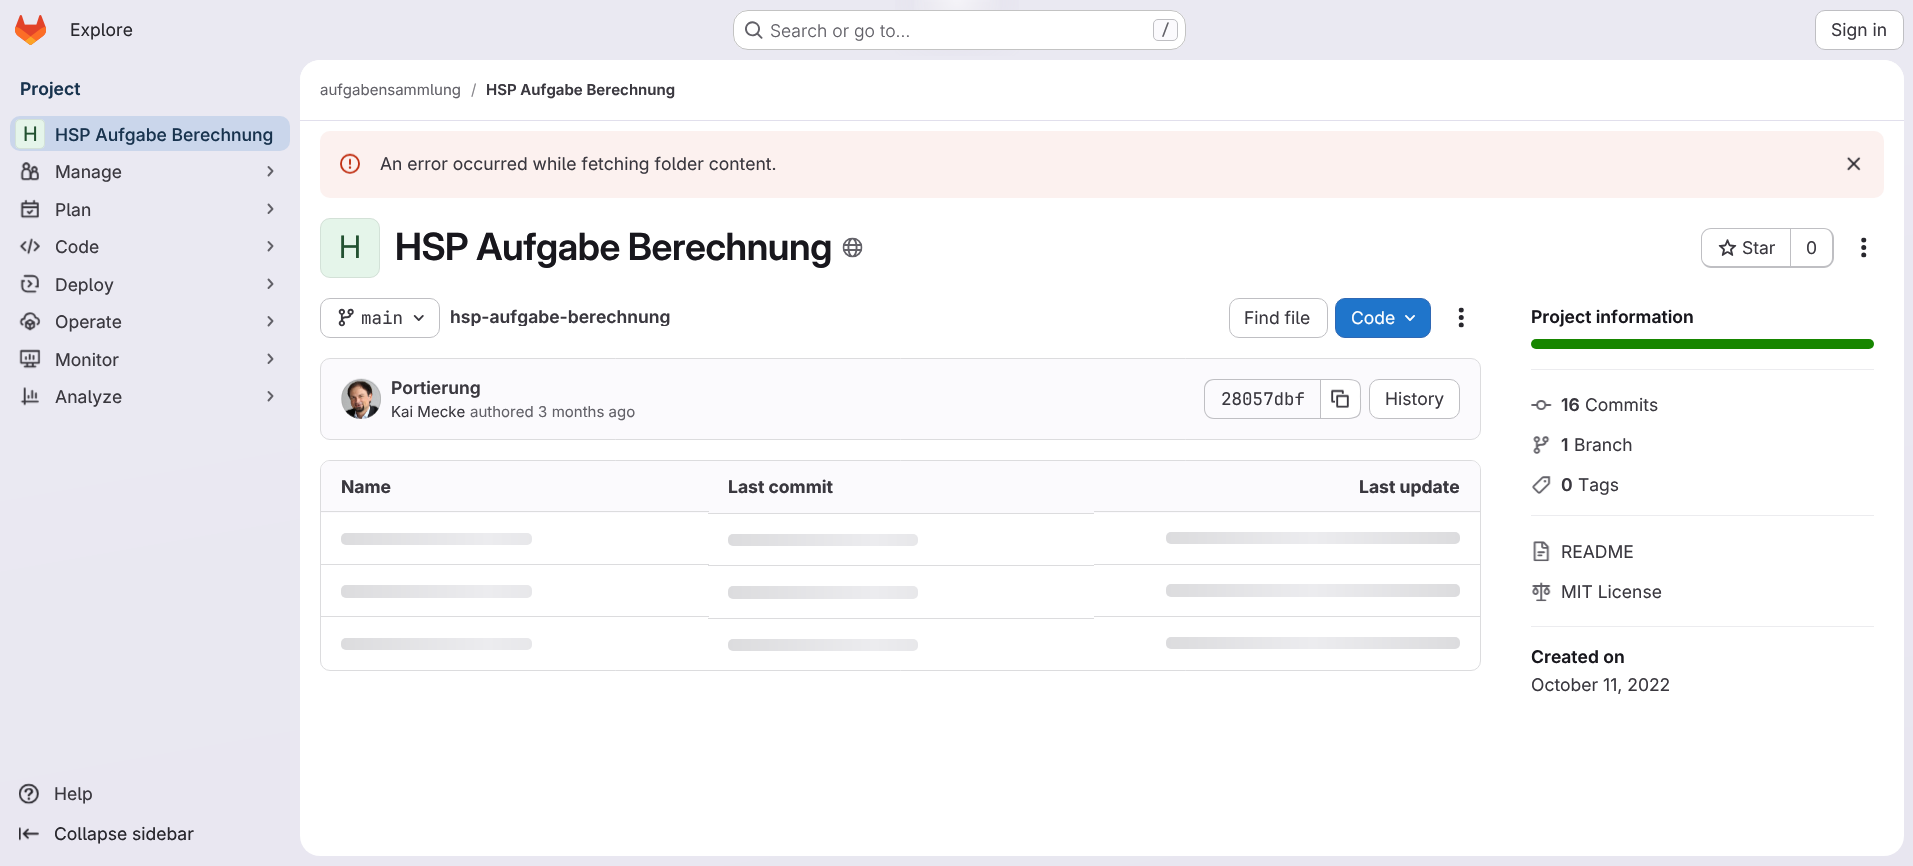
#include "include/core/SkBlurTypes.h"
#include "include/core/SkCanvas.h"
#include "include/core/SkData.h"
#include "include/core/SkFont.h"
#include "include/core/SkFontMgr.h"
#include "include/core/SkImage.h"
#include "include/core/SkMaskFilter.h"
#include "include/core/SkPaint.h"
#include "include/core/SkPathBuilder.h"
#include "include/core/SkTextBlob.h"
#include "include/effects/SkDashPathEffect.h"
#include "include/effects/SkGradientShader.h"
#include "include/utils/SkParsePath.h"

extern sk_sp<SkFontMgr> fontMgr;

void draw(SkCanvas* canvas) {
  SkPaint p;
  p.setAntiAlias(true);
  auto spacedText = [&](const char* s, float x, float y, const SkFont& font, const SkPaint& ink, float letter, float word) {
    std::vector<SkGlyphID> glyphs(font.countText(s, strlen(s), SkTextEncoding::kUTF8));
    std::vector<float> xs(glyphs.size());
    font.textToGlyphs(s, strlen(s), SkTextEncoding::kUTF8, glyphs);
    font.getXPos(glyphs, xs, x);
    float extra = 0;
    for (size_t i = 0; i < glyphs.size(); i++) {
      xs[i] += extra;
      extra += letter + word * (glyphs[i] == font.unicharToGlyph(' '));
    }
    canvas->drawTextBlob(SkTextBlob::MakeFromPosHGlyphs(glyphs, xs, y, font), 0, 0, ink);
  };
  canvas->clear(SK_ColorWHITE);
  {
    const SkColor colors[] = {SkColorSetRGB(232, 230, 240), SkColorSetRGB(234, 233, 242)};
    const float stops[] = {0, 0.7f};
    const SkPoint ends[] = {{1060, 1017}, {854, -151}};
    p.setShader(SkGradientShader::MakeLinear(ends, colors, stops, 2, SkTileMode::kClamp));
    p.setAlpha(255);
  }
  canvas->drawRect(SkRect::MakeLTRB(0, 0, 1913, 866), p);
  {
    const SkColor colors[] = {SkColorSetRGB(228, 226, 237), SkColorSetARGB(0, 228, 226, 237)};
    const float stops[] = {0, 0.09f};
    SkMatrix m = SkMatrix::Translate(957, 0).preScale(957, 866);
    p.setShader(SkGradientShader::MakeRadial({0, 0}, 1, colors, stops, 2, SkTileMode::kClamp, 0, &m));
    p.setAlpha(255);
  }
  canvas->drawRect(SkRect::MakeLTRB(895, 0, 1019, 56), p);
  {
    const SkColor colors[] = {SkColorSetRGB(228, 226, 236), SkColorSetARGB(0, 228, 226, 236)};
    const float stops[] = {0, 0.07f};
    SkMatrix m = SkMatrix::Translate(957, 0).preScale(957, 866);
    p.setShader(SkGradientShader::MakeRadial({0, 0}, 1, colors, stops, 2, SkTileMode::kClamp, 0, &m));
    p.setAlpha(255);
  }
  canvas->drawRect(SkRect::MakeLTRB(924, 2, 990, 19), p);
  {
    const SkColor colors[] = {SkColorSetARGB(153, 255, 255, 255), SkColorSetARGB(0, 255, 255, 255)};
    const float stops[] = {0, 0.04f};
    p.setShader(SkGradientShader::MakeRadial({957, 0}, 1291, colors, stops, 2, SkTileMode::kClamp));
    p.setAlpha(255);
  }
  canvas->drawRect(SkRect::MakeLTRB(914, 0, 1000, 43), p);
  canvas->drawImageRect(SkImages::DeferredFromEncodedData(SkData::MakeFromFileName("images/1.png")), SkRect::MakeLTRB(15, 15, 46, 45), SkSamplingOptions());
  p.setShader(nullptr);
  p.setColor(SK_ColorWHITE);
  canvas->drawRoundRect(SkRect::MakeLTRB(733, 10, 1186, 50), 15, 15, p);
  p.setStyle(SkPaint::kStroke_Style);
  p.setStrokeWidth(1);
  p.setColor(SkColorSetARGB(61, 5, 5, 6));
  canvas->drawRoundRect(SkRect::MakeLTRB(733.5f, 10.5f, 1185.5f, 49.5f), 14.5f, 14.5f, p);
  canvas->drawImageRect(SkImages::DeferredFromEncodedData(SkData::MakeFromFileName("images/2.png")), SkRect::MakeLTRB(745, 21, 763, 39), SkSamplingOptions());
  p.setStyle(SkPaint::kFill_Style);
  p.setColor(SkColorSetRGB(251, 250, 253));
  canvas->drawRoundRect(SkRect::MakeLTRB(1153.5f, 19.5f, 1177.5f, 40.5f), 4.5f, 4.5f, p);
  p.setStyle(SkPaint::kStroke_Style);
  p.setColor(SkColorSetRGB(191, 191, 195));
  canvas->drawRoundRect(SkRect::MakeLTRB(1153.5f, 19.5f, 1177.5f, 40.5f), 4.5f, 4.5f, p);
  p.setStyle(SkPaint::kFill_Style);
  p.setColor(SK_ColorWHITE);
  canvas->drawRoundRect(SkRect::MakeLTRB(1815.5f, 10.5f, 1903.5f, 49.5f), 9.5f, 9.5f, p);
  p.setStyle(SkPaint::kStroke_Style);
  p.setColor(SkColorSetRGB(191, 191, 195));
  canvas->drawRoundRect(SkRect::MakeLTRB(1815.5f, 10.5f, 1903.5f, 49.5f), 9.5f, 9.5f, p);
  p.setStyle(SkPaint::kFill_Style);
  p.setColor(SkColorSetRGB(202, 214, 235));
  canvas->drawRoundRect(SkRect::MakeLTRB(10, 116, 290, 151), 10, 10, p);
  p.setColor(SK_ColorWHITE);
  canvas->drawRoundRect(SkRect::MakeLTRB(15, 119, 45, 149), 5, 5, p);
  p.setColor(SkColorSetARGB(61, 145, 212, 168));
  canvas->drawRoundRect(SkRect::MakeLTRB(15, 119, 45, 149), 5, 5, p);
  p.setStyle(SkPaint::kStroke_Style);
  p.setColor(SkColorSetARGB(20, 5, 5, 6));
  canvas->drawRoundRect(SkRect::MakeLTRB(15.5f, 119.5f, 44.5f, 148.5f), 4.5f, 4.5f, p);
  canvas->drawImageRect(SkImages::DeferredFromEncodedData(SkData::MakeFromFileName("images/3.png")), SkRect::MakeLTRB(20, 162, 39, 181), SkSamplingOptions());
  p.setStrokeWidth(1.9f);
  p.setStrokeCap(SkPaint::kRound_Cap);
  p.setStrokeJoin(SkPaint::kRound_Join);
  p.setColor(SkColorSetRGB(98, 97, 104));
  canvas->drawPath(SkPathBuilder().moveTo(268.5f, 167).lineTo(272.5f, 171).lineTo(268.5f, 175.5f).detach(), p);
  canvas->drawImageRect(SkImages::DeferredFromEncodedData(SkData::MakeFromFileName("images/4.png")), SkRect::MakeLTRB(20, 199, 39, 219), SkSamplingOptions());
  canvas->drawPath(SkPathBuilder().moveTo(268.5f, 204.5f).lineTo(272.5f, 209).lineTo(268.5f, 213).detach(), p);
  canvas->drawImageRect(SkImages::DeferredFromEncodedData(SkData::MakeFromFileName("images/5.png")), SkRect::MakeLTRB(19, 238, 40, 255), SkSamplingOptions());
  canvas->drawPath(SkPathBuilder().moveTo(268.5f, 242).lineTo(272.5f, 246).lineTo(268.5f, 250.5f).detach(), p);
  canvas->drawImageRect(SkImages::DeferredFromEncodedData(SkData::MakeFromFileName("images/6.png")), SkRect::MakeLTRB(20, 274, 39, 294), SkSamplingOptions());
  canvas->drawPath(SkPathBuilder().moveTo(268.5f, 279.5f).lineTo(272.5f, 284).lineTo(268.5f, 288).detach(), p);
  canvas->drawImageRect(SkImages::DeferredFromEncodedData(SkData::MakeFromFileName("images/7.png")), SkRect::MakeLTRB(19, 312, 41, 331), SkSamplingOptions());
  canvas->drawPath(SkPathBuilder().moveTo(268.5f, 317).lineTo(272.5f, 321).lineTo(268.5f, 325.5f).detach(), p);
  canvas->drawImageRect(SkImages::DeferredFromEncodedData(SkData::MakeFromFileName("images/8.png")), SkRect::MakeLTRB(19, 349, 41, 369), SkSamplingOptions());
  canvas->drawPath(SkPathBuilder().moveTo(268.5f, 354.5f).lineTo(272.5f, 359).lineTo(268.5f, 363).detach(), p);
  canvas->drawImageRect(SkImages::DeferredFromEncodedData(SkData::MakeFromFileName("images/9.png")), SkRect::MakeLTRB(20, 387, 39, 406), SkSamplingOptions());
  canvas->drawPath(SkPathBuilder().moveTo(268.5f, 392).lineTo(272.5f, 396).lineTo(268.5f, 400.5f).detach(), p);
  canvas->drawImageRect(SkImages::DeferredFromEncodedData(SkData::MakeFromFileName("images/10.png")), SkRect::MakeLTRB(19, 783, 39, 805), SkSamplingOptions());
  canvas->drawImageRect(SkImages::DeferredFromEncodedData(SkData::MakeFromFileName("images/11.png")), SkRect::MakeLTRB(19, 827, 39, 841), SkSamplingOptions());
  p.setStyle(SkPaint::kFill_Style);
  p.setColor(SK_ColorWHITE);
  canvas->drawRoundRect(SkRect::MakeLTRB(300, 60, 1904, 856), 20, 20, p);
  canvas->drawPath(SkPathBuilder().moveTo(320, 60).lineTo(1884, 60).cubicTo(1895, 60, 1904, 69, 1904, 80).lineTo(1904, 121).lineTo(300, 121).lineTo(300, 80).cubicTo(300, 69, 309, 60, 320, 60).close().detach(), p);
  p.setColor(SkColorSetRGB(225, 223, 236));
  canvas->drawRect(SkRect::MakeLTRB(300, 120, 1904, 121), p);
  p.setColor(SkColorSetRGB(252, 241, 239));
  canvas->drawRoundRect(SkRect::MakeLTRB(320, 131, 1884, 198), 10, 10, p);
  canvas->drawImageRect(SkImages::DeferredFromEncodedData(SkData::MakeFromFileName("images/12.png")), SkRect::MakeLTRB(340, 153, 360, 174), SkSamplingOptions());
  canvas->drawImageRect(SkImages::DeferredFromEncodedData(SkData::MakeFromFileName("images/13.png")), SkRect::MakeLTRB(1846, 156, 1861, 171), SkSamplingOptions());
  p.setColor(SkColorSetRGB(229, 245, 234));
  canvas->drawRoundRect(SkRect::MakeLTRB(320, 218, 380, 278), 10, 10, p);
  p.setStyle(SkPaint::kStroke_Style);
  p.setStrokeWidth(1);
  p.setStrokeCap(SkPaint::kButt_Cap);
  p.setStrokeJoin(SkPaint::kMiter_Join);
  p.setColor(SkColorSetARGB(20, 5, 5, 6));
  canvas->drawRoundRect(SkRect::MakeLTRB(320.5f, 218.5f, 379.5f, 277.5f), 9.5f, 9.5f, p);
  canvas->drawImageRect(SkImages::DeferredFromEncodedData(SkData::MakeFromFileName("images/14.png")), SkRect::MakeLTRB(842, 237, 863, 258), SkSamplingOptions());
  p.setStyle(SkPaint::kFill_Style);
  p.setColor(SkColorSetRGB(191, 191, 195));
  canvas->drawPath(SkPathBuilder(SkPathFillType::kEvenOdd).moveTo(1711, 228).lineTo(1790, 228).lineTo(1790, 268).lineTo(1711, 268).cubicTo(1706, 268, 1701, 263, 1701, 258).lineTo(1701, 238).cubicTo(1701, 232, 1706, 228, 1711, 228).close().moveTo(1711, 229).lineTo(1790, 229).lineTo(1790, 266).lineTo(1711, 266).cubicTo(1706, 266, 1702, 262, 1702, 258).lineTo(1702, 238).cubicTo(1702, 233, 1706, 229, 1711, 229).close().detach(), p);
  canvas->drawImageRect(SkImages::DeferredFromEncodedData(SkData::MakeFromFileName("images/15.png")), SkRect::MakeLTRB(1718, 239, 1737, 256), SkSamplingOptions());
  canvas->drawPath(SkPathBuilder(SkPathFillType::kEvenOdd).moveTo(1791, 228).lineTo(1824, 228).cubicTo(1829, 228, 1834, 232, 1834, 238).lineTo(1834, 258).cubicTo(1834, 263, 1829, 268, 1824, 268).lineTo(1791, 268).close().moveTo(1791, 229).lineTo(1824, 229).cubicTo(1829, 229, 1832, 233, 1832, 238).lineTo(1832, 258).cubicTo(1832, 262, 1829, 266, 1824, 266).lineTo(1791, 266).close().detach(), p);
  canvas->drawRect(SkRect::MakeLTRB(1790, 228, 1791, 268), p);
  canvas->drawImageRect(SkImages::DeferredFromEncodedData(SkData::MakeFromFileName("images/16.png")), SkRect::MakeLTRB(1861, 237, 1867, 258), SkSamplingOptions());
  p.setStyle(SkPaint::kStroke_Style);
  canvas->drawRoundRect(SkRect::MakeLTRB(320.5f, 298.5f, 439.5f, 337.5f), 9.5f, 9.5f, p);
  canvas->drawImageRect(SkImages::DeferredFromEncodedData(SkData::MakeFromFileName("images/17.png")), SkRect::MakeLTRB(338, 308, 354, 327), SkSamplingOptions());
  canvas->drawImageRect(SkImages::DeferredFromEncodedData(SkData::MakeFromFileName("images/18.png")), SkRect::MakeLTRB(413, 315, 424, 321), SkSamplingOptions());
  canvas->drawRoundRect(SkRect::MakeLTRB(1229.5f, 298.5f, 1327.5f, 337.5f), 9.5f, 9.5f, p);
  p.setStyle(SkPaint::kFill_Style);
  p.setColor(SkColorSetRGB(31, 117, 203));
  canvas->drawRoundRect(SkRect::MakeLTRB(1335.5f, 298.5f, 1430.5f, 337.5f), 9.5f, 9.5f, p);
  p.setStyle(SkPaint::kStroke_Style);
  p.setColor(SkColorSetRGB(47, 104, 180));
  canvas->drawRoundRect(SkRect::MakeLTRB(1335.5f, 298.5f, 1430.5f, 337.5f), 9.5f, 9.5f, p);
  canvas->drawImageRect(SkImages::DeferredFromEncodedData(SkData::MakeFromFileName("images/19.png")), SkRect::MakeLTRB(1405, 315, 1415, 321), SkSamplingOptions());
  canvas->drawImageRect(SkImages::DeferredFromEncodedData(SkData::MakeFromFileName("images/20.png")), SkRect::MakeLTRB(1458, 307, 1464, 328), SkSamplingOptions());
  p.setStyle(SkPaint::kFill_Style);
  p.setColor(SkColorSetRGB(251, 250, 253));
  canvas->drawRoundRect(SkRect::MakeLTRB(320.5f, 358.5f, 1480.5f, 439.5f), 9.5f, 9.5f, p);
  p.setStyle(SkPaint::kStroke_Style);
  p.setColor(SkColorSetRGB(220, 220, 222));
  canvas->drawRoundRect(SkRect::MakeLTRB(320.5f, 358.5f, 1480.5f, 439.5f), 9.5f, 9.5f, p);
  canvas->drawImageRect(SkImages::DeferredFromEncodedData(SkData::MakeFromFileName("images/21.png")), SkRect::MakeLTRB(341, 378, 381, 419), SkSamplingOptions());
  p.setColor(SkColorSetARGB(20, 5, 5, 6));
  canvas->drawCircle(361, 399, 19.5f, p);
  p.setStyle(SkPaint::kFill_Style);
  p.setColor(SkColorSetRGB(191, 191, 195));
  canvas->drawPath(SkPathBuilder(SkPathFillType::kEvenOdd).moveTo(1214, 379).lineTo(1320, 379).lineTo(1320, 419).lineTo(1214, 419).cubicTo(1208, 419, 1204, 414, 1204, 409).lineTo(1204, 389).cubicTo(1204, 383, 1208, 379, 1214, 379).close().moveTo(1214, 380).lineTo(1320, 380).lineTo(1320, 418).lineTo(1214, 418).cubicTo(1209, 418, 1205, 414, 1205, 409).lineTo(1205, 389).cubicTo(1205, 384, 1209, 380, 1214, 380).close().detach(), p);
  p.setColor(SK_ColorWHITE);
  canvas->drawPath(SkPathBuilder().moveTo(1321, 380).lineTo(1351, 380).cubicTo(1356, 380, 1360, 384, 1360, 389).lineTo(1360, 409).cubicTo(1360, 414, 1356, 418, 1351, 418).lineTo(1321, 418).close().detach(), p);
  p.setColor(SkColorSetRGB(191, 191, 195));
  canvas->drawPath(SkPathBuilder(SkPathFillType::kEvenOdd).moveTo(1321, 379).lineTo(1346, 379).cubicTo(1363, 379, 1361, 385, 1361, 399).cubicTo(1361, 413, 1363, 419, 1346, 419).lineTo(1321, 419).close().moveTo(1321, 380).lineTo(1346, 380).cubicTo(1362, 380, 1360, 385, 1360, 399).cubicTo(1360, 412, 1362, 418, 1346, 418).lineTo(1321, 418).close().detach(), p);
  canvas->drawRect(SkRect::MakeLTRB(1320, 379, 1321, 419), p);
  canvas->drawImageRect(SkImages::DeferredFromEncodedData(SkData::MakeFromFileName("images/22.png")), SkRect::MakeLTRB(1331, 389, 1349, 408), SkSamplingOptions());
  p.setColor(SK_ColorWHITE);
  canvas->drawRoundRect(SkRect::MakeLTRB(1369.5f, 379.5f, 1459.5f, 418.5f), 9.5f, 9.5f, p);
  p.setStyle(SkPaint::kStroke_Style);
  p.setColor(SkColorSetRGB(191, 191, 195));
  canvas->drawRoundRect(SkRect::MakeLTRB(1369.5f, 379.5f, 1459.5f, 418.5f), 9.5f, 9.5f, p);
  p.setColor(SkColorSetRGB(220, 220, 222));
  canvas->drawRoundRect(SkRect::MakeLTRB(320.5f, 460.5f, 1480.5f, 670.5f), 9.5f, 9.5f, p);
  p.setStyle(SkPaint::kFill_Style);
  p.setColor(SkColorSetRGB(251, 250, 253));
  canvas->drawPath(SkPathBuilder().moveTo(330, 461).lineTo(708, 461).lineTo(708, 513).lineTo(321, 513).lineTo(321, 470).cubicTo(321, 465, 325, 461, 330, 461).close().detach(), p);
  canvas->drawRect(SkRect::MakeLTRB(708, 461, 1094, 513), p);
  canvas->drawPath(SkPathBuilder().moveTo(1094, 461).lineTo(1471, 461).cubicTo(1476, 461, 1480, 465, 1480, 470).lineTo(1480, 513).lineTo(1094, 513).close().detach(), p);
  p.setColor(SkColorSetRGB(220, 220, 222));
  canvas->drawRect(SkRect::MakeLTRB(321, 511, 709, 512), p);
  {
    const SkColor colors[] = {SkColorSetRGB(220, 220, 222), SkColorSetRGB(236, 236, 239), SkColorSetRGB(220, 220, 222)};
    const float stops[] = {0, 0.5f, 1};
    const SkPoint ends[] = {{341, 533}, {635, 533}};
    p.setShader(SkGradientShader::MakeLinear(ends, colors, stops, 3, SkTileMode::kClamp));
    p.setAlpha(255);
  }
  canvas->drawRoundRect(SkRect::MakeLTRB(341, 533, 532, 545), 5, 5, p);
  p.setShader(nullptr);
  p.setColor(SkColorSetRGB(220, 220, 222));
  canvas->drawRect(SkRect::MakeLTRB(708, 513, 1094, 514), p);
  {
    const SkColor colors[] = {SkColorSetRGB(220, 220, 222), SkColorSetRGB(236, 236, 239), SkColorSetRGB(220, 220, 222)};
    const float stops[] = {0, 0.5f, 1};
    const SkPoint ends[] = {{728, 534}, {1021, 534}};
    p.setShader(SkGradientShader::MakeLinear(ends, colors, stops, 3, SkTileMode::kClamp));
    p.setAlpha(255);
  }
  canvas->drawRoundRect(SkRect::MakeLTRB(728, 534, 918, 546), 5, 5, p);
  p.setShader(nullptr);
  p.setColor(SkColorSetRGB(220, 220, 222));
  canvas->drawRect(SkRect::MakeLTRB(1094, 511, 1480, 512), p);
  {
    const SkColor colors[] = {SkColorSetRGB(220, 220, 222), SkColorSetRGB(236, 236, 239), SkColorSetRGB(220, 220, 222)};
    const float stops[] = {0, 0.5f, 1};
    const SkPoint ends[] = {{1166, 532}, {1460, 532}};
    p.setShader(SkGradientShader::MakeLinear(ends, colors, stops, 3, SkTileMode::kClamp));
    p.setAlpha(255);
  }
  canvas->drawRoundRect(SkRect::MakeLTRB(1166, 532, 1460, 544), 5, 5, p);
  p.setShader(nullptr);
  p.setColor(SkColorSetRGB(220, 220, 222));
  canvas->drawRect(SkRect::MakeLTRB(321, 564, 709, 565), p);
  {
    const SkColor colors[] = {SkColorSetRGB(220, 220, 222), SkColorSetRGB(236, 236, 239), SkColorSetRGB(220, 220, 222)};
    const float stops[] = {0, 0.5f, 1};
    const SkPoint ends[] = {{341, 585}, {635, 585}};
    p.setShader(SkGradientShader::MakeLinear(ends, colors, stops, 3, SkTileMode::kClamp));
    p.setAlpha(255);
  }
  canvas->drawRoundRect(SkRect::MakeLTRB(341, 585, 532, 598), 5, 5, p);
  p.setShader(nullptr);
  p.setColor(SkColorSetRGB(220, 220, 222));
  canvas->drawRect(SkRect::MakeLTRB(708, 565, 1094, 566), p);
  {
    const SkColor colors[] = {SkColorSetRGB(220, 220, 222), SkColorSetRGB(236, 236, 239), SkColorSetRGB(220, 220, 222)};
    const float stops[] = {0, 0.5f, 1};
    const SkPoint ends[] = {{728, 586}, {1021, 586}};
    p.setShader(SkGradientShader::MakeLinear(ends, colors, stops, 3, SkTileMode::kClamp));
    p.setAlpha(255);
  }
  canvas->drawRoundRect(SkRect::MakeLTRB(728, 586, 918, 599), 5, 5, p);
  p.setShader(nullptr);
  p.setColor(SkColorSetRGB(220, 220, 222));
  canvas->drawRect(SkRect::MakeLTRB(1094, 564, 1480, 565), p);
  {
    const SkColor colors[] = {SkColorSetRGB(220, 220, 222), SkColorSetRGB(236, 236, 239), SkColorSetRGB(220, 220, 222)};
    const float stops[] = {0, 0.5f, 1};
    const SkPoint ends[] = {{1166, 584}, {1460, 584}};
    p.setShader(SkGradientShader::MakeLinear(ends, colors, stops, 3, SkTileMode::kClamp));
    p.setAlpha(255);
  }
  canvas->drawRoundRect(SkRect::MakeLTRB(1166, 584, 1460, 597), 5, 5, p);
  p.setShader(nullptr);
  p.setColor(SkColorSetRGB(220, 220, 222));
  canvas->drawRect(SkRect::MakeLTRB(321, 616, 709, 617), p);
  {
    const SkColor colors[] = {SkColorSetRGB(220, 220, 222), SkColorSetRGB(236, 236, 239), SkColorSetRGB(220, 220, 222)};
    const float stops[] = {0, 0.5f, 1};
    const SkPoint ends[] = {{341, 638}, {635, 638}};
    p.setShader(SkGradientShader::MakeLinear(ends, colors, stops, 3, SkTileMode::kClamp));
    p.setAlpha(255);
  }
  canvas->drawRoundRect(SkRect::MakeLTRB(341, 638, 532, 650), 5, 5, p);
  p.setShader(nullptr);
  p.setColor(SkColorSetRGB(220, 220, 222));
  canvas->drawRect(SkRect::MakeLTRB(708, 618, 1094, 619), p);
  {
    const SkColor colors[] = {SkColorSetRGB(220, 220, 222), SkColorSetRGB(236, 236, 239), SkColorSetRGB(220, 220, 222)};
    const float stops[] = {0, 0.5f, 1};
    const SkPoint ends[] = {{728, 639}, {1021, 639}};
    p.setShader(SkGradientShader::MakeLinear(ends, colors, stops, 3, SkTileMode::kClamp));
    p.setAlpha(255);
  }
  canvas->drawRoundRect(SkRect::MakeLTRB(728, 639, 918, 651), 5, 5, p);
  p.setShader(nullptr);
  p.setColor(SkColorSetRGB(220, 220, 222));
  canvas->drawRect(SkRect::MakeLTRB(1094, 616, 1480, 617), p);
  {
    const SkColor colors[] = {SkColorSetRGB(220, 220, 222), SkColorSetRGB(236, 236, 239), SkColorSetRGB(220, 220, 222)};
    const float stops[] = {0, 0.5f, 1};
    const SkPoint ends[] = {{1166, 637}, {1460, 637}};
    p.setShader(SkGradientShader::MakeLinear(ends, colors, stops, 3, SkTileMode::kClamp));
    p.setAlpha(255);
  }
  canvas->drawRoundRect(SkRect::MakeLTRB(1166, 637, 1460, 649), 5, 5, p);
  p.setShader(nullptr);
  p.setColor(SkColorSetRGB(236, 236, 239));
  canvas->drawRect(SkRect::MakeLTRB(1531, 369, 1874, 370), p);
  p.setColor(SkColorSetRGB(23, 134, 0));
  canvas->drawRoundRect(SkRect::MakeLTRB(1531, 339, 1874, 349), 5, 5, p);
  p.setColor(SkColorSetRGB(236, 236, 239));
  canvas->drawRect(SkRect::MakeLTRB(1531, 515, 1874, 516), p);
  canvas->drawImageRect(SkImages::DeferredFromEncodedData(SkData::MakeFromFileName("images/23.png")), SkRect::MakeLTRB(1531, 400, 1552, 410), SkSamplingOptions());
  canvas->drawImageRect(SkImages::DeferredFromEncodedData(SkData::MakeFromFileName("images/24.png")), SkRect::MakeLTRB(1533, 436, 1550, 454), SkSamplingOptions());
  canvas->drawImageRect(SkImages::DeferredFromEncodedData(SkData::MakeFromFileName("images/25.png")), SkRect::MakeLTRB(1532, 476, 1551, 494), SkSamplingOptions());
  canvas->drawRect(SkRect::MakeLTRB(1531, 626, 1874, 627), p);
  canvas->drawImageRect(SkImages::DeferredFromEncodedData(SkData::MakeFromFileName("images/26.png")), SkRect::MakeLTRB(1533, 541, 1550, 562), SkSamplingOptions());
  canvas->drawImageRect(SkImages::DeferredFromEncodedData(SkData::MakeFromFileName("images/27.png")), SkRect::MakeLTRB(1532, 582, 1551, 602), SkSamplingOptions());
  SkFont font1(fontMgr->matchFamilyStyle("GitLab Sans", SkFontStyle::Normal()), 17.5f);
  font1.setSubpixel(true);
  p.setColor(SkColorSetRGB(40, 39, 45));
  canvas->drawString("Explore", 70, 36, font1, p);
  SkFont font2(fontMgr->matchFamilyStyle("GitLab Sans", SkFontStyle(300, SkFontStyle::kNormal_Width, SkFontStyle::kUpright_Slant)), 17.5f);
  font2.setSubpixel(true);
  p.setColor(SkColorSetRGB(98, 97, 104));
  canvas->drawString("Search or go to…", 770, 37, font2, p);
  SkFont font3(fontMgr->matchFamilyStyle("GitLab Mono", SkFontStyle(500, SkFontStyle::kNormal_Width, SkFontStyle::kUpright_Slant)), 15);
  font3.setSubpixel(true);
  canvas->drawString("/", 1161, 35, font3, p);
  p.setColor(SkColorSetRGB(58, 56, 63));
  canvas->drawString("Sign in", 1831, 36, font1, p);
  SkFont font4(fontMgr->matchFamilyStyle("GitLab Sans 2", SkFontStyle(600, SkFontStyle::kNormal_Width, SkFontStyle::kUpright_Slant)), 17.5f);
  font4.setSubpixel(true);
  p.setColor(SkColorSetRGB(24, 51, 78));
  canvas->drawString("Project", 20, 95, font4, p);
  SkFont font5(fontMgr->matchFamilyStyle("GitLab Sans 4", SkFontStyle::Normal()), 20);
  font5.setSubpixel(true);
  p.setColor(SkColorSetRGB(34, 81, 49));
  canvas->drawString("H", 23, 141, font5, p);
  SkFont font6(fontMgr->matchFamilyStyle("GitLab Sans", SkFontStyle(500, SkFontStyle::kNormal_Width, SkFontStyle::kUpright_Slant)), 17.5f);
  font6.setSubpixel(true);
  p.setColor(SkColorSetRGB(24, 51, 78));
  canvas->drawString("HSP Aufgabe Berechnung", 55, 141, font6, p);
  SkFont font7(fontMgr->matchFamilyStyle("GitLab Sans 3", SkFontStyle::Normal()), 17.5f);
  font7.setSubpixel(true);
  p.setColor(SkColorSetRGB(58, 56, 63));
  canvas->drawString("Manage", 55, 178, font7, p);
  canvas->drawString("Plan", 55, 216, font7, p);
  canvas->drawString("Code", 55, 253, font7, p);
  canvas->drawString("Deploy", 55, 291, font7, p);
  canvas->drawString("Operate", 55, 328, font7, p);
  canvas->drawString("Monitor", 55, 366, font7, p);
  canvas->drawString("Analyze", 55, 403, font7, p);
  canvas->drawString("Help", 54, 800, font7, p);
  p.setColor(SkColorSetRGB(40, 39, 45));
  canvas->drawString("Collapse sidebar", 54, 840, font7, p);
  SkFont font8(fontMgr->matchFamilyStyle("GitLab Sans", SkFontStyle::Normal()), 15);
  font8.setSubpixel(true);
  p.setColor(SkColorSetRGB(98, 97, 104));
  canvas->drawString("aufgabensammlung", 320, 95, font8, p);
  p.setColor(SkColorSetRGB(137, 136, 141));
  canvas->drawString("/", 471, 95, font8, p);
  SkFont font9(fontMgr->matchFamilyStyle("GitLab Sans 2", SkFontStyle(600, SkFontStyle::kNormal_Width, SkFontStyle::kUpright_Slant)), 15);
  font9.setSubpixel(true);
  p.setColor(SkColorSetRGB(58, 56, 63));
  canvas->drawString("HSP Aufgabe Berechnung", 486, 95, font9, p);
  canvas->drawString("An error occurred while fetching folder content.", 380, 170, font1, p);
  SkFont font10(fontMgr->matchFamilyStyle("GitLab Sans 2", SkFontStyle::Normal()), 31);
  font10.setSubpixel(true);
  p.setColor(SkColorSetRGB(34, 81, 49));
  canvas->drawString("H", 339, 258, font10, p);
  SkFont font11(fontMgr->matchFamilyStyle("GitLab Sans", SkFontStyle(600, SkFontStyle::kNormal_Width, SkFontStyle::kUpright_Slant)), 37.5f);
  font11.setSubpixel(true);
  p.setColor(SkColorSetRGB(24, 23, 29));
  spacedText("HSP Aufgabe Berechnung", 395, 260, font11, p, -0.4f, 0);
  p.setColor(SkColorSetRGB(58, 56, 63));
  canvas->drawString("Star", 1742, 254, font1, p);
  canvas->drawString("0", 1806, 254, font1, p);
  SkFont font12(fontMgr->matchFamilyStyle("GitLab Mono", SkFontStyle::Normal()), 17.5f);
  font12.setSubpixel(true);
  canvas->drawString("main", 361, 324, font12, p);
  canvas->save();
  canvas->clipPath(SkPathBuilder().moveTo(455, 305).lineTo(665, 305).cubicTo(668, 305, 670, 307, 670, 310).lineTo(670, 321).cubicTo(670, 324, 668, 326, 665, 326).lineTo(455, 326).cubicTo(452, 326, 450, 324, 450, 321).lineTo(450, 310).cubicTo(450, 307, 452, 305, 455, 305).close().detach(), true);
  canvas->drawString("hsp-aufgabe-berechnung", 450, 323, font4, p);
  canvas->restore();
  canvas->drawString("Find file", 1244, 324, font1, p);
  p.setColor(SK_ColorWHITE);
  canvas->drawString("Code", 1351, 324, font1, p);
  p.setColor(SkColorSetRGB(58, 56, 63));
  canvas->drawString("Portierung", 391, 394, font4, p);
  canvas->drawString("Kai Mecke", 391, 417, font8, p);
  p.setColor(SkColorSetRGB(98, 97, 104));
  canvas->drawString("authored 3 months ago", 470, 417, font8, p);
  p.setColor(SkColorSetRGB(58, 56, 63));
  canvas->drawString("28057dbf", 1221, 405, font12, p);
  canvas->drawString("History", 1385, 405, font1, p);
  SkFont font13(fontMgr->matchFamilyStyle("GitLab Sans", SkFontStyle::Bold()), 17.5f);
  font13.setSubpixel(true);
  canvas->drawString("Name", 341, 493, font13, p);
  canvas->drawString("Last commit", 728, 493, font13, p);
  canvas->drawString("Last update", 1359, 493, font13, p);
  p.setColor(SkColorSetRGB(24, 23, 29));
  canvas->drawString("Project information", 1531, 323, font4, p);
  p.setColor(SkColorSetRGB(58, 56, 63));
  canvas->drawString("16", 1561, 411, font4, p);
  canvas->drawString("Commits", 1585, 411, font1, p);
  canvas->drawString("1", 1561, 451, font4, p);
  canvas->drawString("Branch", 1574, 451, font1, p);
  canvas->drawString("0", 1561, 491, font4, p);
  canvas->drawString("Tags", 1578, 491, font1, p);
  canvas->drawString("README", 1561, 558, font1, p);
  canvas->drawString("MIT License", 1561, 598, font1, p);
  p.setColor(SkColorSetRGB(24, 23, 29));
  canvas->drawString("Created on", 1531, 663, font4, p);
  p.setColor(SkColorSetRGB(58, 56, 63));
  canvas->drawString("October 11, 2022", 1531, 691, font1, p);
}
